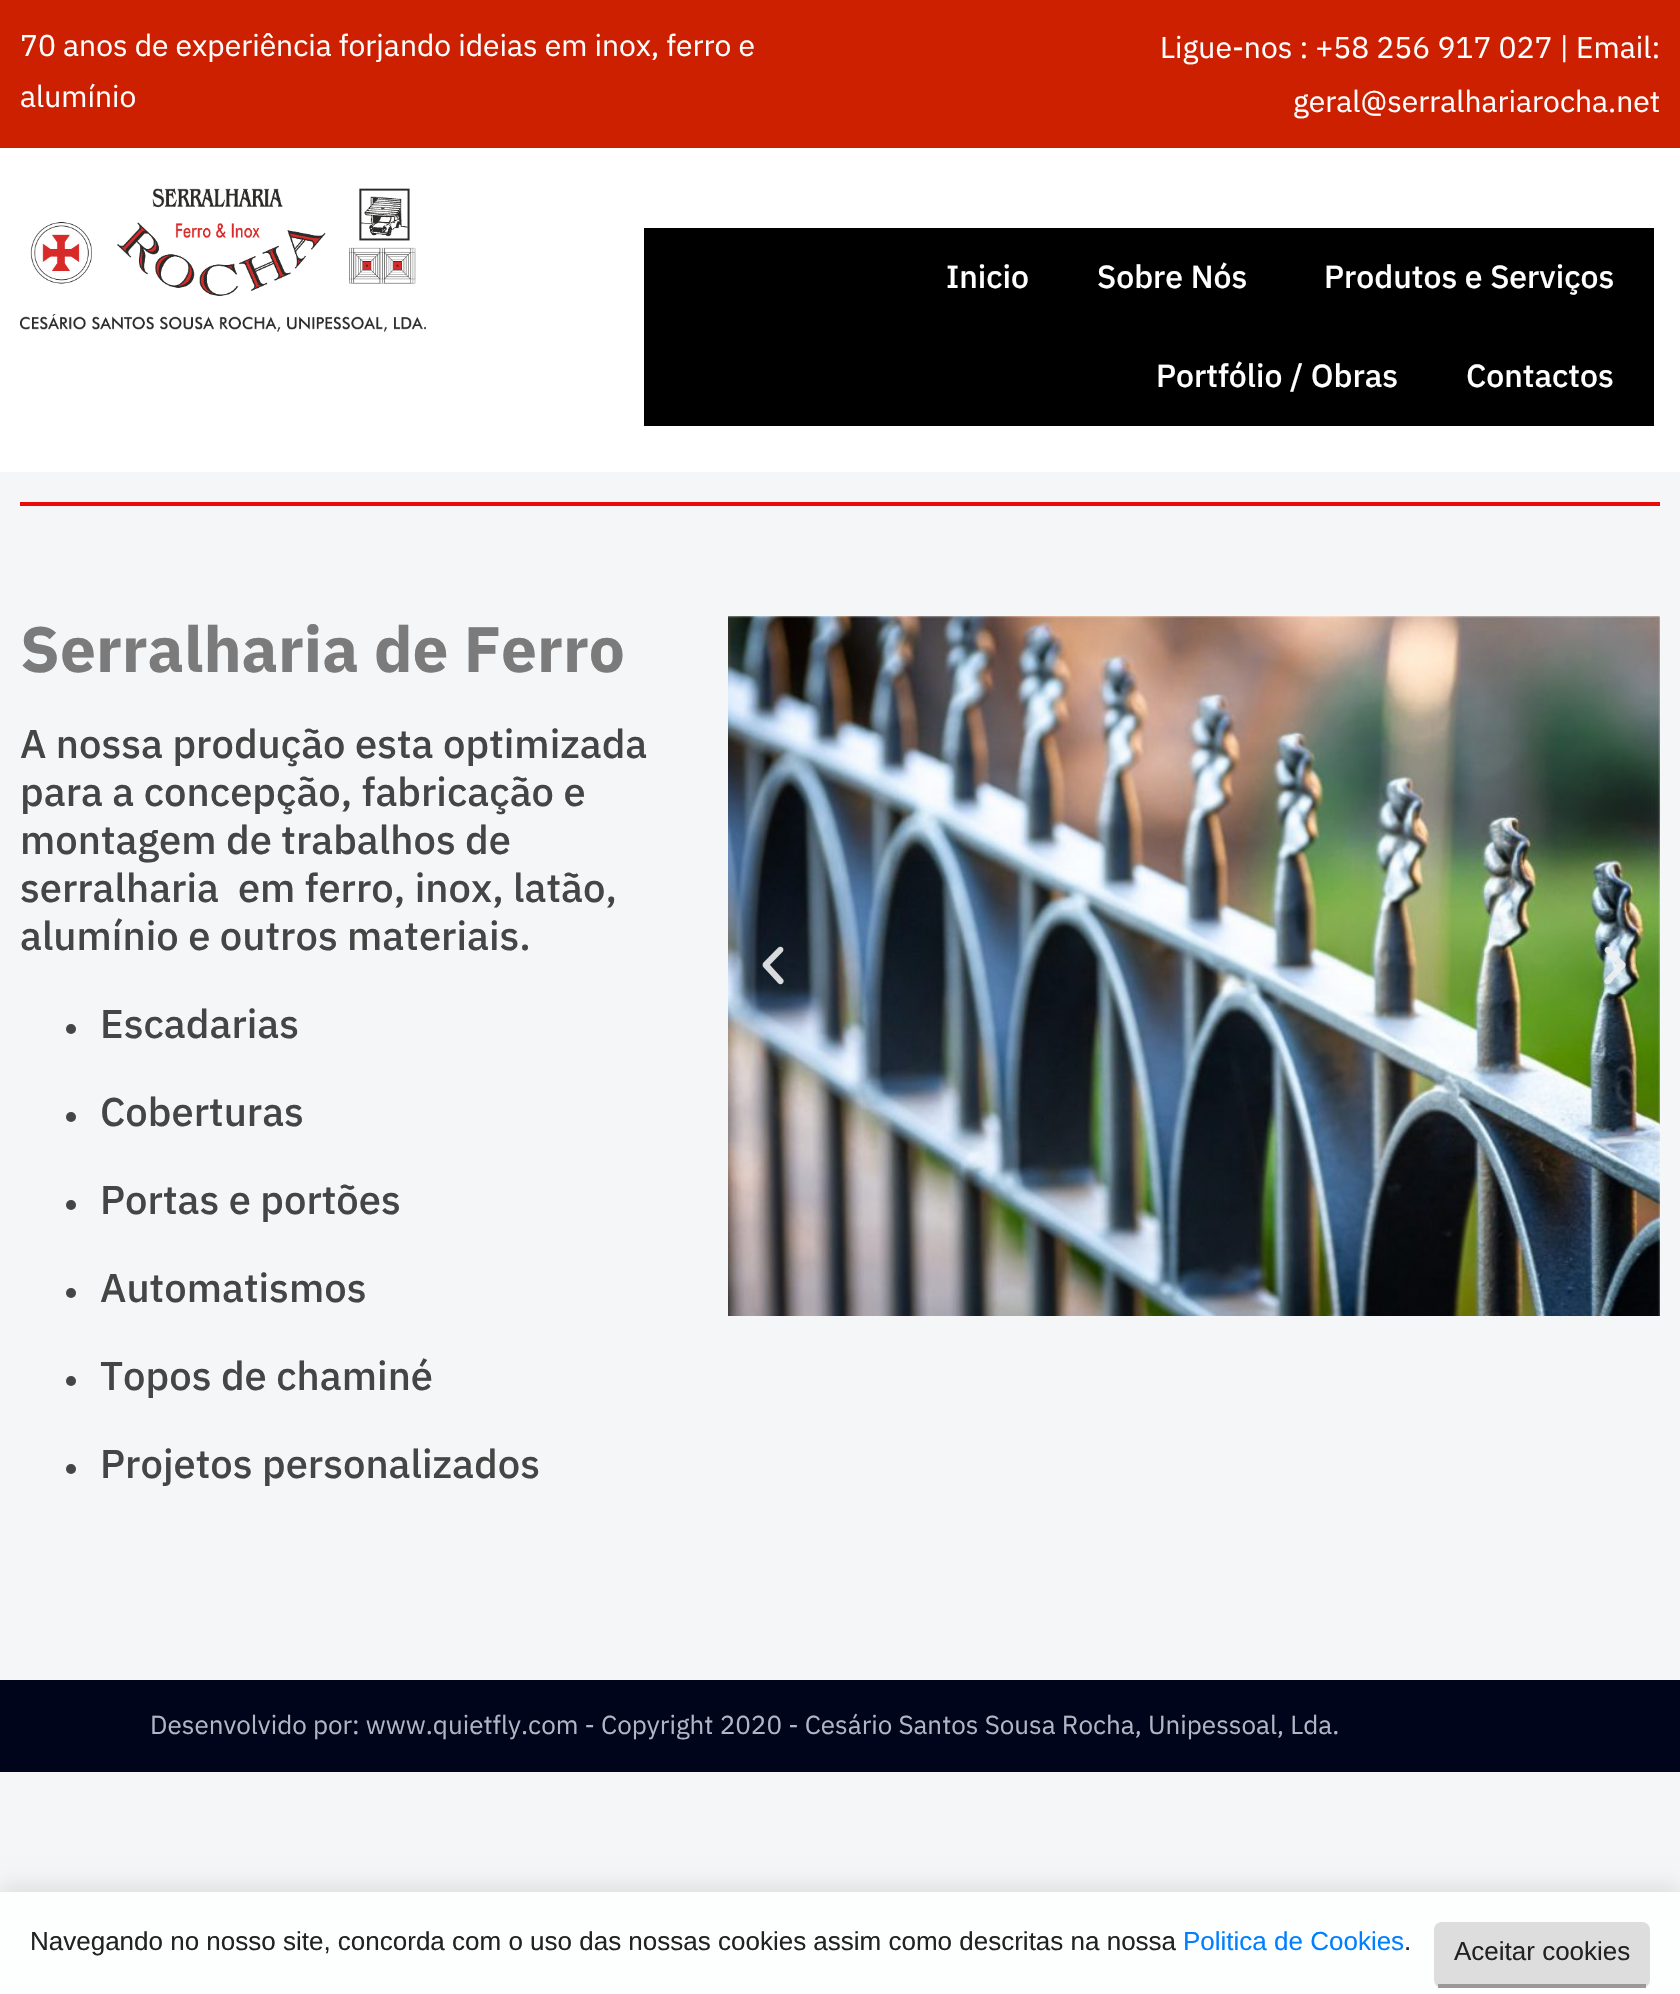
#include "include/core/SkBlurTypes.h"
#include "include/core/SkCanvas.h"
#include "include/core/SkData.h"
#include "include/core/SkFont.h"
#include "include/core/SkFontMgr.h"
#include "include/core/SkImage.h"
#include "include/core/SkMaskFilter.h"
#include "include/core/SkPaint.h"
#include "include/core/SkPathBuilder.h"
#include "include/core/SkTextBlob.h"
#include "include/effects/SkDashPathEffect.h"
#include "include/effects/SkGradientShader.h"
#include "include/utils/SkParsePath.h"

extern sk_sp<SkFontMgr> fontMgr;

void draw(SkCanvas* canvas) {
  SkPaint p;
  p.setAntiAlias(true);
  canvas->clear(SkColorSetRGB(245, 246, 247));
  p.setColor(SkColorSetRGB(204, 32, 0));
  canvas->drawRect(SkRect::MakeLTRB(0, 0, 1680, 148), p);
  p.setColor(SK_ColorWHITE);
  canvas->drawRect(SkRect::MakeLTRB(0, 148, 1680, 472), p);
  canvas->drawImageRect(SkImages::DeferredFromEncodedData(SkData::MakeFromFileName("images/1.png")), SkRect::MakeLTRB(20, 188, 426, 332), SkSamplingOptions());
  p.setColor(SK_ColorBLACK);
  canvas->drawRect(SkRect::MakeLTRB(644, 228, 1654, 426), p);
  p.setColor(SkColorSetRGB(233, 10, 10));
  canvas->drawRect(SkRect::MakeLTRB(20, 502, 1660, 506), p);
  p.setColor(SkColorSetRGB(69, 69, 69));
  canvas->drawCircle(71, 1029, 5, p);
  canvas->drawCircle(71, 1117, 5, p);
  canvas->drawCircle(71, 1205, 5, p);
  canvas->drawCircle(71, 1293, 5, p);
  canvas->drawCircle(71, 1381, 5, p);
  canvas->drawCircle(71, 1469, 5, p);
  canvas->drawImageRect(SkImages::DeferredFromEncodedData(SkData::MakeFromFileName("images/2.png")), SkRect::MakeLTRB(728, 616, 1660, 1316), SkSamplingOptions());
  canvas->drawImageRect(SkImages::DeferredFromEncodedData(SkData::MakeFromFileName("images/3.png")), SkRect::MakeLTRB(762, 946, 784, 985), SkSamplingOptions());
  canvas->drawImageRect(SkImages::DeferredFromEncodedData(SkData::MakeFromFileName("images/4.png")), SkRect::MakeLTRB(1604, 946, 1626, 985), SkSamplingOptions());
  p.setColor(SkColorSetRGB(0, 5, 28));
  canvas->drawRect(SkRect::MakeLTRB(0, 1680, 1680, 1772), p);
  p.setColor(SkColorSetARGB(26, 0, 0, 0));
  p.setMaskFilter(SkMaskFilter::MakeBlur(kNormal_SkBlurStyle, 10));
  canvas->drawRect(SkRect::MakeLTRB(0, 1886, 1680, 1988), p);
  p.setMaskFilter(nullptr);
  p.setColor(SkColorSetRGB(253, 254, 254));
  canvas->drawRect(SkRect::MakeLTRB(0, 1892, 1680, 1994), p);
  p.setColor(SkColorSetRGB(221, 221, 221));
  canvas->drawRoundRect(SkRect::MakeLTRB(1434, 1922, 1650, 1988), 8, 8, p);
  p.setColor(SkColorSetRGB(153, 153, 153));
  canvas->drawRect(SkRect::MakeLTRB(1438, 1984, 1646, 1988), p);
  SkFont font1(fontMgr->matchFamilyStyle("IBM Plex Sans", SkFontStyle::Normal()), 30);
  font1.setSubpixel(true);
  p.setColor(SK_ColorWHITE);
  canvas->drawString("70 anos de experiência forjando ideias em inox, ferro e", 20, 56, font1, p);
  canvas->drawString("alumínio", 20, 107, font1, p);
  canvas->drawString("Ligue-nos : +58 256 917 027 | Email:", 1160, 58, font1, p);
  canvas->drawString("geral@serralhariarocha.net", 1293, 112, font1, p);
  SkFont font2(fontMgr->matchFamilyStyle("IBM Plex Sans", SkFontStyle(500, SkFontStyle::kNormal_Width, SkFontStyle::kUpright_Slant)), 32);
  font2.setSubpixel(true);
  canvas->drawString("Inicio", 946, 288, font2, p);
  canvas->drawString("Sobre Nós", 1097, 288, font2, p);
  canvas->drawString("Produtos e Serviços", 1324, 288, font2, p);
  canvas->drawString("Portfólio / Obras", 1156, 387, font2, p);
  canvas->drawString("Contactos", 1466, 387, font2, p);
  SkFont font3(fontMgr->matchFamilyStyle("IBM Plex Sans", SkFontStyle::Bold()), 64);
  font3.setSubpixel(true);
  p.setColor(SkColorSetRGB(123, 123, 124));
  canvas->drawString("Serralharia de Ferro", 20, 672, font3, p);
  SkFont font4(fontMgr->matchFamilyStyle("IBM Plex Sans", SkFontStyle(500, SkFontStyle::kNormal_Width, SkFontStyle::kUpright_Slant)), 40);
  font4.setSubpixel(true);
  p.setColor(SkColorSetRGB(69, 69, 69));
  canvas->drawString("A nossa produção esta optimizada", 20, 758, font4, p);
  canvas->drawString("para a concepção, fabricação e", 20, 806, font4, p);
  canvas->drawString("montagem de trabalhos de", 20, 854, font4, p);
  canvas->drawString("serralharia  em ferro, inox, latão,", 20, 902, font4, p);
  canvas->drawString("alumínio e outros materiais.", 20, 950, font4, p);
  canvas->drawString("Escadarias", 100, 1038, font4, p);
  canvas->drawString("Coberturas", 100, 1126, font4, p);
  canvas->drawString("Portas e portões", 100, 1214, font4, p);
  canvas->drawString("Automatismos", 100, 1302, font4, p);
  canvas->drawString("Topos de chaminé", 100, 1390, font4, p);
  canvas->drawString("Projetos personalizados", 100, 1478, font4, p);
  SkFont font5(fontMgr->matchFamilyStyle("IBM Plex Sans", SkFontStyle::Normal()), 26);
  font5.setSubpixel(true);
  p.setColor(SkColorSetRGB(175, 183, 197));
  canvas->drawString("Desenvolvido por: www.quietfly.com - Copyright 2020 - Cesário Santos Sousa Rocha, Unipessoal, Lda.", 150, 1734, font5, p);
  SkFont font6(fontMgr->matchFamilyStyle("Liberation Sans", SkFontStyle::Normal()), 26);
  font6.setSubpixel(true);
  p.setColor(SkColorSetRGB(34, 34, 34));
  canvas->drawString("Navegando no nosso site, concorda com o uso das nossas cookies assim como descritas na nossa", 30, 1950, font6, p);
  p.setColor(SkColorSetRGB(0, 127, 255));
  canvas->drawString("Politica de Cookies", 1183, 1950, font6, p);
  p.setColor(SkColorSetRGB(34, 34, 34));
  canvas->drawString(".", 1404, 1950, font6, p);
  canvas->drawString("Aceitar cookies", 1454, 1960, font6, p);
}
